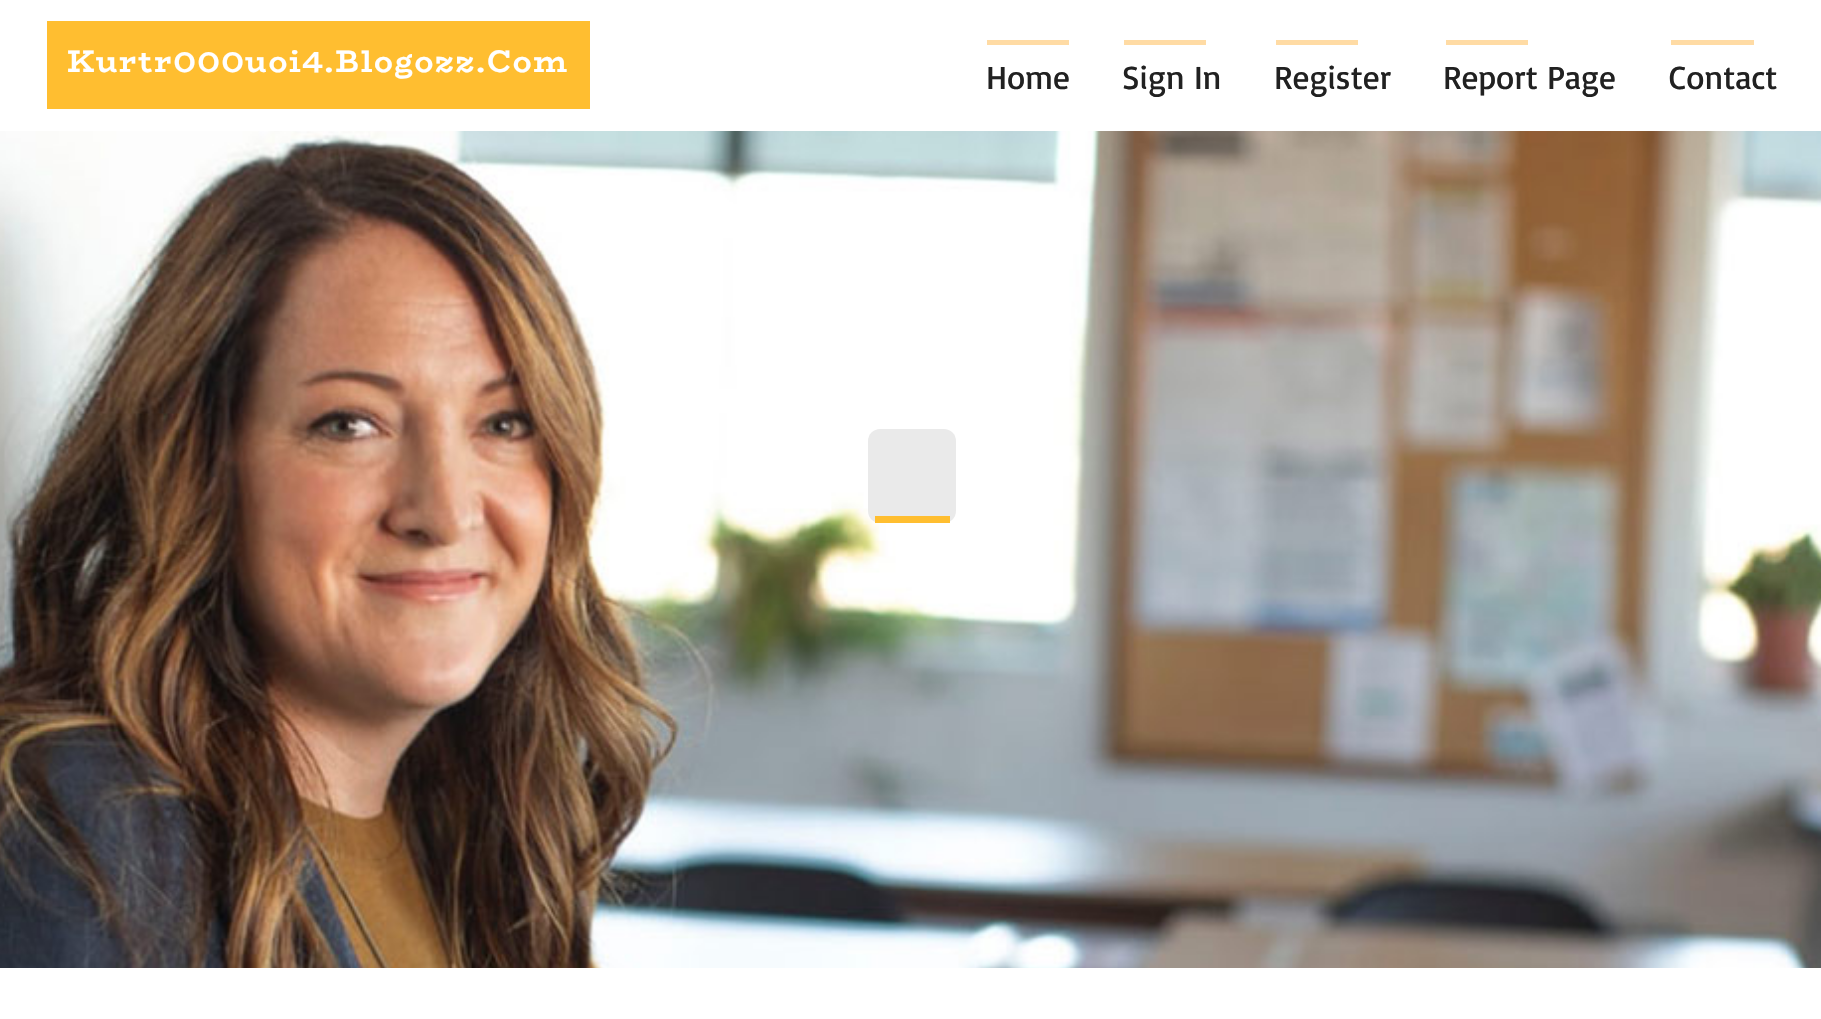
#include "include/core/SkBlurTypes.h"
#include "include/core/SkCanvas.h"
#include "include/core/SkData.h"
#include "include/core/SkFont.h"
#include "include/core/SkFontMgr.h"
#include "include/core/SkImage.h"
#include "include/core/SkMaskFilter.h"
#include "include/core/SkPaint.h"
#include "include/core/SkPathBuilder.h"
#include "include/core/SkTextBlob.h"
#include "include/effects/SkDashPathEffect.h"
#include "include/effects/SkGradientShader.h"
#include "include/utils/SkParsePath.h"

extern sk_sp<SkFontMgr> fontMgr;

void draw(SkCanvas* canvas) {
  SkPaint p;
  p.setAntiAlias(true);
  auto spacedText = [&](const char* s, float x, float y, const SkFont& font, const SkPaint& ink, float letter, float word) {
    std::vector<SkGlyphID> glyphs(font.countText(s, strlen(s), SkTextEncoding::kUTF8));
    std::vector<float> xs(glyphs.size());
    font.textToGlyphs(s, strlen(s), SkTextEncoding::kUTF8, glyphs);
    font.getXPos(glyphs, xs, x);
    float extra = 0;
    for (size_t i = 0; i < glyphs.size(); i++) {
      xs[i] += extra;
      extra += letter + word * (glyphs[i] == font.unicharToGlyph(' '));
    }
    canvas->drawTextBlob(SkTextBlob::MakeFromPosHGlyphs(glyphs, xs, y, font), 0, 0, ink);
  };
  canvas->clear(SK_ColorWHITE);
  p.setColor(SkColorSetRGB(255, 190, 48));
  canvas->drawRect(SkRect::MakeLTRB(47, 21, 590, 109), p);
  p.setColor(SkColorSetRGB(255, 219, 164));
  canvas->drawRect(SkRect::MakeLTRB(987, 40, 1069, 45), p);
  canvas->drawRect(SkRect::MakeLTRB(1124, 40, 1206, 45), p);
  canvas->drawRect(SkRect::MakeLTRB(1276, 40, 1358, 45), p);
  canvas->drawRect(SkRect::MakeLTRB(1446, 40, 1528, 45), p);
  canvas->drawRect(SkRect::MakeLTRB(1671, 40, 1754, 45), p);
  canvas->drawImageRect(SkImages::DeferredFromEncodedData(SkData::MakeFromFileName("images/1.png")), SkRect::MakeLTRB(0, 131, 1821, 968), SkSamplingOptions());
  p.setColor(SkColorSetARGB(179, 225, 225, 225));
  canvas->drawRoundRect(SkRect::MakeLTRB(868, 429, 956, 523), 12, 12, p);
  p.setColor(SkColorSetRGB(255, 190, 48));
  canvas->drawRect(SkRect::MakeLTRB(875, 516, 950, 523), p);
  SkFont font1(fontMgr->matchFamilyStyle("BioRhyme", SkFontStyle::Bold()), 31.5f);
  font1.setSubpixel(true);
  p.setColor(SK_ColorWHITE);
  spacedText("Kurtr000uoi4.Blogozz.Com", 67, 72, font1, p, 1.75f, 0);
  SkFont font2(fontMgr->matchFamilyStyle("Basic", SkFontStyle::Normal()), 33.25f);
  font2.setSubpixel(true);
  p.setColor(SkColorSetRGB(33, 33, 33));
  canvas->drawString("Home", 986, 89, font2, p);
  canvas->drawString("Sign In", 1122, 89, font2, p);
  canvas->drawString("Register", 1274, 89, font2, p);
  canvas->drawString("Report Page", 1443, 89, font2, p);
  canvas->drawString("Contact", 1669, 89, font2, p);
}
